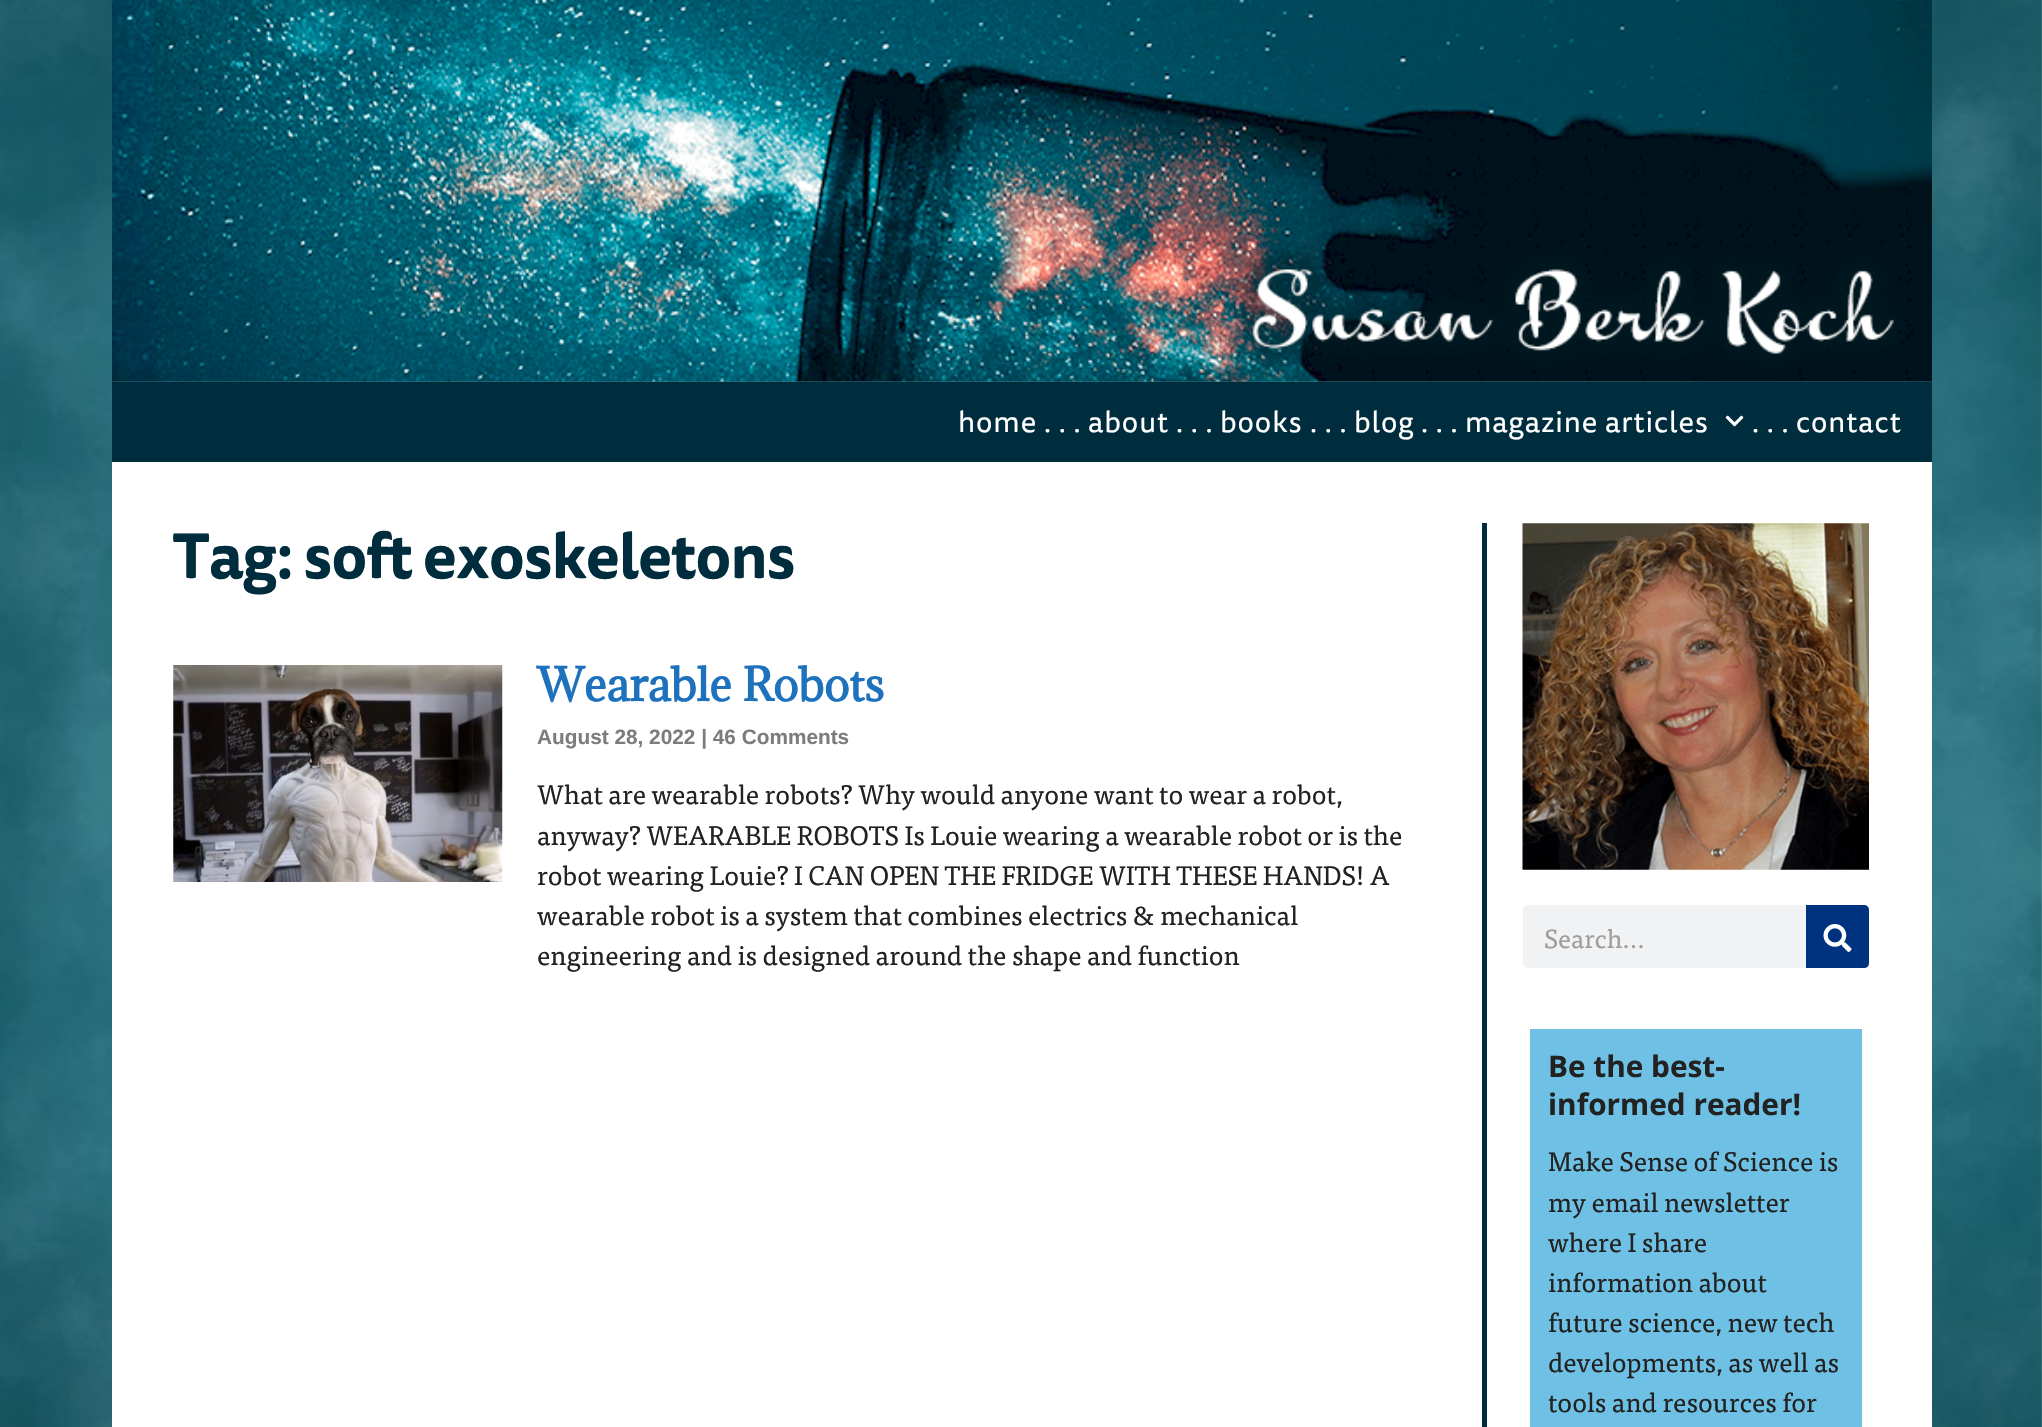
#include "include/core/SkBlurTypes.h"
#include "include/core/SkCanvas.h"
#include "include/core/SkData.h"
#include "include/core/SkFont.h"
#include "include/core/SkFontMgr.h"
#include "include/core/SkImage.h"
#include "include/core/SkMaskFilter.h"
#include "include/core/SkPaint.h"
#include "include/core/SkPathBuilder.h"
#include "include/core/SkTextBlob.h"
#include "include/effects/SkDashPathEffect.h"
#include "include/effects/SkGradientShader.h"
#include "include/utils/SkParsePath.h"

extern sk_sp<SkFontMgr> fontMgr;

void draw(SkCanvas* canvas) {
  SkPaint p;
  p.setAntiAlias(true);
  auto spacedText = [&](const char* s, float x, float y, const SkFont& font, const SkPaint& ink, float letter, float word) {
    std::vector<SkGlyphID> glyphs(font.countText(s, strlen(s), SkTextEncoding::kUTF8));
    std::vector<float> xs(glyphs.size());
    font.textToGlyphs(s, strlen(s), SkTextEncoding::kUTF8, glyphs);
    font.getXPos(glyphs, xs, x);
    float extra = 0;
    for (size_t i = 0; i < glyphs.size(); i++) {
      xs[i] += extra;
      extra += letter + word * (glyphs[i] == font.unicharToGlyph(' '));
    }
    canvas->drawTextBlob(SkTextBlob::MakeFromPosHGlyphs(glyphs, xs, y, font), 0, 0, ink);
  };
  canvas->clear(SK_ColorWHITE);
  canvas->drawImageRect(SkImages::DeferredFromEncodedData(SkData::MakeFromFileName("images/1.png")), SkRect::MakeLTRB(0, 0, 2042, 1427), SkSamplingOptions());
  canvas->drawImageRect(SkImages::DeferredFromEncodedData(SkData::MakeFromFileName("images/2.png")), SkRect::MakeLTRB(112, 0, 1932, 382), SkSamplingOptions());
  p.setColor(SkColorSetRGB(0, 45, 62));
  canvas->drawRect(SkRect::MakeLTRB(112, 382, 1932, 462), p);
  canvas->drawImageRect(SkImages::DeferredFromEncodedData(SkData::MakeFromFileName("images/3.png")), SkRect::MakeLTRB(1725, 415, 1744, 427), SkSamplingOptions());
  p.setColor(SK_ColorWHITE);
  canvas->drawRect(SkRect::MakeLTRB(112, 462, 1932, 1427), p);
  p.setColor(SkColorSetRGB(0, 45, 62));
  canvas->drawRect(SkRect::MakeLTRB(1482, 523, 1487, 1427), p);
  canvas->drawImageRect(SkImages::DeferredFromEncodedData(SkData::MakeFromFileName("images/4.png")), SkRect::MakeLTRB(173, 665, 503, 882), SkSamplingOptions());
  canvas->drawImageRect(SkImages::DeferredFromEncodedData(SkData::MakeFromFileName("images/5.png")), SkRect::MakeLTRB(1522, 523, 1869, 870), SkSamplingOptions());
  p.setColor(SkColorSetRGB(241, 242, 243));
  canvas->drawRoundRect(SkRect::MakeLTRB(1523, 905, 1869, 968), 5, 5, p);
  p.setColor(SkColorSetRGB(0, 51, 127));
  canvas->drawPath(SkPathBuilder().moveTo(1806, 905).lineTo(1864, 905).cubicTo(1867, 905, 1869, 907, 1869, 910).lineTo(1869, 963).cubicTo(1869, 966, 1867, 968, 1864, 968).lineTo(1806, 968).close().detach(), p);
  canvas->drawImageRect(SkImages::DeferredFromEncodedData(SkData::MakeFromFileName("images/6.png")), SkRect::MakeLTRB(1823, 924, 1852, 952), SkSamplingOptions());
  p.setColor(SkColorSetRGB(110, 193, 228));
  canvas->drawRect(SkRect::MakeLTRB(1530, 1029, 1862, 1427), p);
  SkFont font1(fontMgr->matchFamilyStyle("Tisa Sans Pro", SkFontStyle::Normal()), 29.5f);
  font1.setSubpixel(true);
  p.setColor(SK_ColorWHITE);
  spacedText("home", 958, 432, font1, p, 0.9f, 0);
  spacedText(". . .", 1044, 432, font1, p, 0.9f, 0);
  spacedText("about", 1088, 432, font1, p, 0.9f, 0);
  spacedText(". . .", 1176, 432, font1, p, 0.9f, 0);
  spacedText("books", 1220, 432, font1, p, 0.9f, 0);
  spacedText(". . .", 1310, 432, font1, p, 0.9f, 0);
  spacedText("blog", 1354, 432, font1, p, 0.9f, 0);
  spacedText(". . .", 1421, 432, font1, p, 0.9f, 0);
  spacedText("magazine articles", 1465, 432, font1, p, 0.9f, 0);
  spacedText(". . .", 1752, 432, font1, p, 0.9f, 0);
  spacedText("contact", 1796, 432, font1, p, 0.9f, 0);
  SkFont font2(fontMgr->matchFamilyStyle("Tisa Sans Pro", SkFontStyle::Bold()), 62.5f);
  font2.setSubpixel(true);
  p.setColor(SkColorSetRGB(0, 45, 62));
  spacedText("Tag: soft exoskeletons", 172, 578, font2, p, -1.25f, 0);
  SkFont font3(fontMgr->matchFamilyStyle("Adamina", SkFontStyle::Bold()), 42.75f);
  font3.setSubpixel(true);
  p.setColor(SkColorSetRGB(30, 114, 189));
  canvas->drawString("Wearable Robots", 537, 701, font3, p);
  SkFont font4(fontMgr->matchFamilyStyle("Liberation Sans", SkFontStyle::Bold()), 20.8f);
  font4.setSubpixel(true);
  p.setColor(SkColorSetRGB(124, 124, 124));
  canvas->drawString("August 28, 2022 | 46 Comments", 537, 744, font4, p);
  SkFont font5(fontMgr->matchFamilyStyle("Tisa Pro", SkFontStyle::Normal()), 26.75f);
  font5.setSubpixel(true);
  p.setColor(SkColorSetRGB(34, 34, 34));
  canvas->drawString("What are wearable robots? Why would anyone want to wear a robot,", 537, 804, font5, p);
  canvas->drawString("anyway? WEARABLE ROBOTS Is Louie wearing a wearable robot or is the", 537, 845, font5, p);
  canvas->drawString("robot wearing Louie? I CAN OPEN THE FRIDGE WITH THESE HANDS! A", 537, 885, font5, p);
  canvas->drawString("wearable robot is a system that combines electrics & mechanical", 537, 925, font5, p);
  canvas->drawString("engineering and is designed around the shape and function", 537, 965, font5, p);
  SkFont font6(fontMgr->matchFamilyStyle("Tisa Pro", SkFontStyle::Normal()), 26);
  font6.setSubpixel(true);
  p.setColor(SkColorSetRGB(158, 158, 158));
  canvas->drawString("Search...", 1544, 948, font6, p);
  SkFont font7(fontMgr->matchFamilyStyle("Open Sans", SkFontStyle::Bold()), 29.75f);
  font7.setSubpixel(true);
  p.setColor(SkColorSetRGB(34, 34, 34));
  canvas->drawString("Be the best-", 1548, 1077, font7, p);
  canvas->drawString("informed reader!", 1548, 1115, font7, p);
  canvas->drawString("Make Sense of Science is", 1548, 1171, font5, p);
  canvas->drawString("my email newsletter", 1548, 1212, font5, p);
  canvas->drawString("where I share", 1548, 1252, font5, p);
  canvas->drawString("information about", 1548, 1292, font5, p);
  canvas->drawString("future science, new tech", 1548, 1332, font5, p);
  canvas->drawString("developments, as well as", 1548, 1372, font5, p);
  canvas->drawString("tools and resources for", 1548, 1412, font5, p);
}
